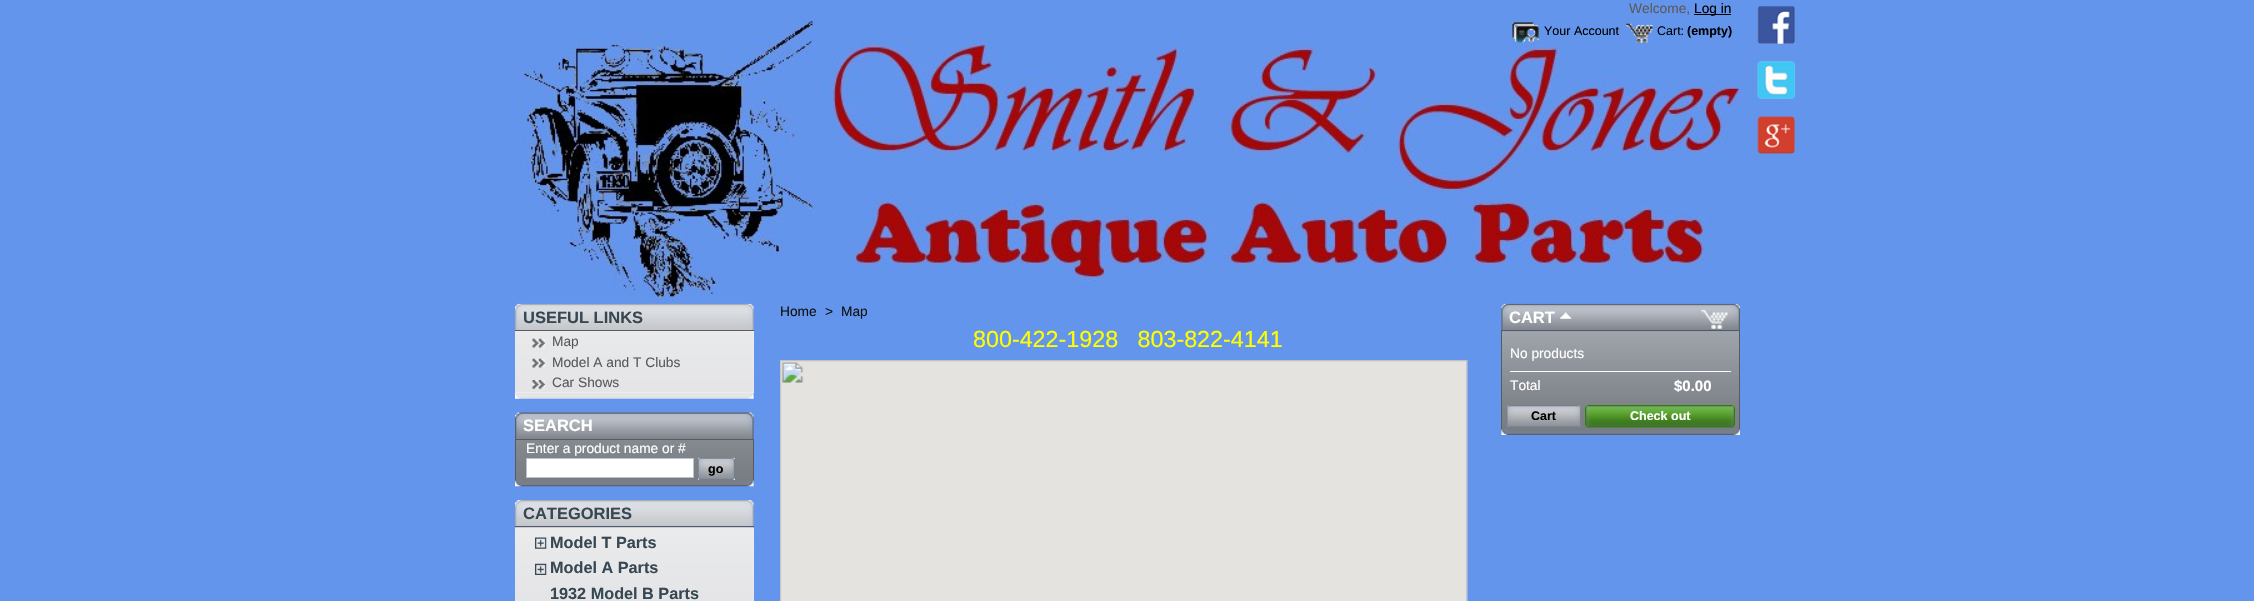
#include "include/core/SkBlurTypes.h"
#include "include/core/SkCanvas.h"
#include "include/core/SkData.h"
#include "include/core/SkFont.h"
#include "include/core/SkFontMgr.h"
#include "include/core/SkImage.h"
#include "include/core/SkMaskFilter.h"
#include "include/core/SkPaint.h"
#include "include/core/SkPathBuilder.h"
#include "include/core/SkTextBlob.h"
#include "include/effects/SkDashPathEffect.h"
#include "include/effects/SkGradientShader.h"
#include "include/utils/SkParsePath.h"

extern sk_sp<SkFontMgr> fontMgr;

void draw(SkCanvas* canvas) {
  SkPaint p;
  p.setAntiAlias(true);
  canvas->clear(SkColorSetRGB(100, 149, 237));
  canvas->drawImageRect(SkImages::DeferredFromEncodedData(SkData::MakeFromFileName("images/6.png")), SkRect::MakeLTRB(515, 14, 1756, 304), SkSamplingOptions());
  p.setColor(SK_ColorBLACK);
  canvas->drawRect(SkRect::MakeLTRB(1694, 14, 1731, 15), p);
  canvas->drawImageRect(SkImages::DeferredFromEncodedData(SkData::MakeFromFileName("images/1.png")), SkRect::MakeLTRB(1512, 22, 1539, 43), SkSamplingOptions());
  canvas->drawImageRect(SkImages::DeferredFromEncodedData(SkData::MakeFromFileName("images/2.png")), SkRect::MakeLTRB(1626, 23, 1653, 43), SkSamplingOptions());
  canvas->drawImageRect(SkImages::DeferredFromEncodedData(SkData::MakeFromFileName("images/3.png")), SkRect::MakeLTRB(1757, 6, 1795, 44), SkSamplingOptions());
  canvas->drawImageRect(SkImages::DeferredFromEncodedData(SkData::MakeFromFileName("images/4.png")), SkRect::MakeLTRB(1757, 61, 1795, 99), SkSamplingOptions());
  canvas->drawImageRect(SkImages::DeferredFromEncodedData(SkData::MakeFromFileName("images/5.png")), SkRect::MakeLTRB(1757, 116, 1795, 154), SkSamplingOptions());
  canvas->drawImageRect(SkImages::DeferredFromEncodedData(SkData::MakeFromFileName("images/7.png")), SkRect::MakeLTRB(515, 393, 754, 399), SkSamplingOptions());
  canvas->drawImageRect(SkImages::DeferredFromEncodedData(SkData::MakeFromFileName("images/8.png")), SkRect::MakeLTRB(515, 303, 754, 330), SkSamplingOptions());
  p.setColor(SkColorSetRGB(89, 90, 94));
  canvas->drawRect(SkRect::MakeLTRB(515, 330, 754, 331), p);
  p.setColor(SkColorSetRGB(241, 242, 244));
  canvas->drawRect(SkRect::MakeLTRB(515, 331, 754, 393), p);
  canvas->drawImageRect(SkImages::DeferredFromEncodedData(SkData::MakeFromFileName("images/9.png")), SkRect::MakeLTRB(515, 331, 754, 393), SkSamplingOptions());
  canvas->drawImageRect(SkImages::DeferredFromEncodedData(SkData::MakeFromFileName("images/10.png")), SkRect::MakeLTRB(532, 338, 545, 348), SkSamplingOptions());
  canvas->drawImageRect(SkImages::DeferredFromEncodedData(SkData::MakeFromFileName("images/11.png")), SkRect::MakeLTRB(532, 358, 545, 368), SkSamplingOptions());
  canvas->drawImageRect(SkImages::DeferredFromEncodedData(SkData::MakeFromFileName("images/12.png")), SkRect::MakeLTRB(532, 380, 545, 389), SkSamplingOptions());
  canvas->drawImageRect(SkImages::DeferredFromEncodedData(SkData::MakeFromFileName("images/13.png")), SkRect::MakeLTRB(515, 480, 754, 487), SkSamplingOptions());
  canvas->drawImageRect(SkImages::DeferredFromEncodedData(SkData::MakeFromFileName("images/14.png")), SkRect::MakeLTRB(515, 412, 754, 439), SkSamplingOptions());
  p.setColor(SkColorSetRGB(89, 90, 94));
  canvas->drawRect(SkRect::MakeLTRB(515, 439, 754, 440), p);
  canvas->drawImageRect(SkImages::DeferredFromEncodedData(SkData::MakeFromFileName("images/15.png")), SkRect::MakeLTRB(516, 440, 753, 480), SkSamplingOptions());
  canvas->drawRect(SkRect::MakeLTRB(753, 440, 754, 480), p);
  canvas->drawRect(SkRect::MakeLTRB(515, 440, 516, 480), p);
  p.setColor(SK_ColorWHITE);
  canvas->drawRect(SkRect::MakeLTRB(526.5f, 458.5f, 693.5f, 477.5f), p);
  p.setStyle(SkPaint::kStroke_Style);
  p.setStrokeWidth(1);
  p.setColor(SkColorSetRGB(189, 194, 201));
  canvas->drawRect(SkRect::MakeLTRB(526.5f, 458.5f, 693.5f, 477.5f), p);
  p.setStyle(SkPaint::kFill_Style);
  p.setColor(SkColorSetRGB(239, 239, 239));
  canvas->drawRect(SkRect::MakeLTRB(698, 458, 735, 480), p);
  canvas->drawImageRect(SkImages::DeferredFromEncodedData(SkData::MakeFromFileName("images/16.png")), SkRect::MakeLTRB(697, 457, 735, 480), SkSamplingOptions());
  canvas->drawImageRect(SkImages::DeferredFromEncodedData(SkData::MakeFromFileName("images/17.png")), SkRect::MakeLTRB(515, 500, 754, 528), SkSamplingOptions());
  p.setColor(SkColorSetRGB(89, 90, 94));
  canvas->drawRect(SkRect::MakeLTRB(515, 526, 754, 527), p);
  p.setColor(SkColorSetRGB(241, 242, 244));
  canvas->drawRect(SkRect::MakeLTRB(753, 528, 754, 601), p);
  canvas->drawImageRect(SkImages::DeferredFromEncodedData(SkData::MakeFromFileName("images/18.png")), SkRect::MakeLTRB(515, 527, 754, 601), SkSamplingOptions());
  canvas->drawImageRect(SkImages::DeferredFromEncodedData(SkData::MakeFromFileName("images/19.png")), SkRect::MakeLTRB(535, 537, 547, 549), SkSamplingOptions());
  canvas->drawImageRect(SkImages::DeferredFromEncodedData(SkData::MakeFromFileName("images/20.png")), SkRect::MakeLTRB(535, 563, 547, 575), SkSamplingOptions());
  canvas->drawImageRect(SkImages::DeferredFromEncodedData(SkData::MakeFromFileName("images/21.png")), SkRect::MakeLTRB(780, 360, 1468, 601), SkSamplingOptions());
  canvas->drawImageRect(SkImages::DeferredFromEncodedData(SkData::MakeFromFileName("images/22.png")), SkRect::MakeLTRB(1501, 428, 1740, 435), SkSamplingOptions());
  canvas->drawImageRect(SkImages::DeferredFromEncodedData(SkData::MakeFromFileName("images/23.png")), SkRect::MakeLTRB(1501, 303, 1740, 332), SkSamplingOptions());
  p.setColor(SkColorSetRGB(89, 90, 94));
  canvas->drawRect(SkRect::MakeLTRB(1501, 330, 1740, 331), p);
  canvas->drawImageRect(SkImages::DeferredFromEncodedData(SkData::MakeFromFileName("images/24.png")), SkRect::MakeLTRB(1560, 312, 1572, 319), SkSamplingOptions());
  canvas->drawImageRect(SkImages::DeferredFromEncodedData(SkData::MakeFromFileName("images/25.png")), SkRect::MakeLTRB(1502, 331, 1739, 429), SkSamplingOptions());
  canvas->drawRect(SkRect::MakeLTRB(1739, 331, 1740, 429), p);
  canvas->drawRect(SkRect::MakeLTRB(1501, 331, 1502, 429), p);
  p.setColor(SK_ColorWHITE);
  canvas->drawRect(SkRect::MakeLTRB(1510, 371, 1731, 372), p);
  canvas->drawImageRect(SkImages::DeferredFromEncodedData(SkData::MakeFromFileName("images/26.png")), SkRect::MakeLTRB(1506, 405, 1581, 428), SkSamplingOptions());
  canvas->drawImageRect(SkImages::DeferredFromEncodedData(SkData::MakeFromFileName("images/27.png")), SkRect::MakeLTRB(1585, 405, 1735, 428), SkSamplingOptions());
  SkFont font1(fontMgr->matchFamilyStyle("Liberation Sans", SkFontStyle::Normal()), 13.75f);
  font1.setSubpixel(true);
  p.setColor(SkColorSetRGB(89, 90, 94));
  canvas->drawString("Welcome,", 1629, 13, font1, p);
  p.setColor(SK_ColorBLACK);
  canvas->drawString("Log in", 1694, 13, font1, p);
  SkFont font2(fontMgr->matchFamilyStyle("Liberation Sans", SkFontStyle::Normal()), 12.5f);
  font2.setSubpixel(true);
  canvas->drawString("Your Account", 1544, 35, font2, p);
  canvas->drawString("Cart:", 1657, 35, font2, p);
  SkFont font3(fontMgr->matchFamilyStyle("Liberation Sans", SkFontStyle::Bold()), 12.5f);
  font3.setSubpixel(true);
  canvas->drawString("(empty)", 1687, 35, font3, p);
  SkFont font4(fontMgr->matchFamilyStyle("Liberation Sans", SkFontStyle::Bold()), 16.5f);
  font4.setSubpixel(true);
  p.setColor(SkColorSetRGB(55, 72, 83));
  canvas->drawString("USEFUL LINKS", 523, 323, font4, p);
  p.setColor(SkColorSetRGB(89, 90, 94));
  canvas->drawString("Map", 552, 346, font1, p);
  canvas->drawString("Model A and T Clubs", 552, 367, font1, p);
  canvas->drawString("Car Shows", 552, 387, font1, p);
  p.setColor(SK_ColorWHITE);
  canvas->drawString("SEARCH", 523, 431, font4, p);
  canvas->drawString("Enter a product name or #", 526, 453, font1, p);
  p.setColor(SK_ColorBLACK);
  canvas->drawString("go", 708, 473, font3, p);
  p.setColor(SkColorSetRGB(55, 72, 83));
  canvas->drawString("CATEGORIES", 523, 519, font4, p);
  SkFont font5(fontMgr->matchFamilyStyle("Liberation Sans", SkFontStyle::Bold()), 16.25f);
  font5.setSubpixel(true);
  canvas->drawString("Model T Parts", 550, 548, font5, p);
  canvas->drawString("Model A Parts", 550, 573, font5, p);
  canvas->drawString("1932 Model B Parts", 550, 599, font5, p);
  p.setColor(SkColorSetRGB(17, 17, 17));
  canvas->drawString("Home", 780, 316, font1, p);
  canvas->drawString(">", 825, 316, font1, p);
  canvas->drawString("Map", 841, 316, font1, p);
  SkFont font6(fontMgr->matchFamilyStyle("Liberation Sans", SkFontStyle::Normal()), 23.3f);
  font6.setSubpixel(true);
  p.setColor(SkColorSetRGB(255, 255, 0));
  canvas->drawString("800-422-1928   803-822-4141", 973, 347, font6, p);
  p.setColor(SK_ColorWHITE);
  canvas->drawString("CART", 1509, 323, font4, p);
  canvas->drawString("No products", 1510, 358, font1, p);
  canvas->drawString("Total", 1510, 390, font1, p);
  SkFont font7(fontMgr->matchFamilyStyle("Liberation Sans", SkFontStyle::Bold()), 15);
  font7.setSubpixel(true);
  canvas->drawString("$0.00", 1674, 391, font7, p);
  p.setColor(SK_ColorBLACK);
  canvas->drawString("Cart", 1531, 420, font3, p);
  p.setColor(SK_ColorWHITE);
  canvas->drawString("Check out", 1630, 420, font3, p);
}
